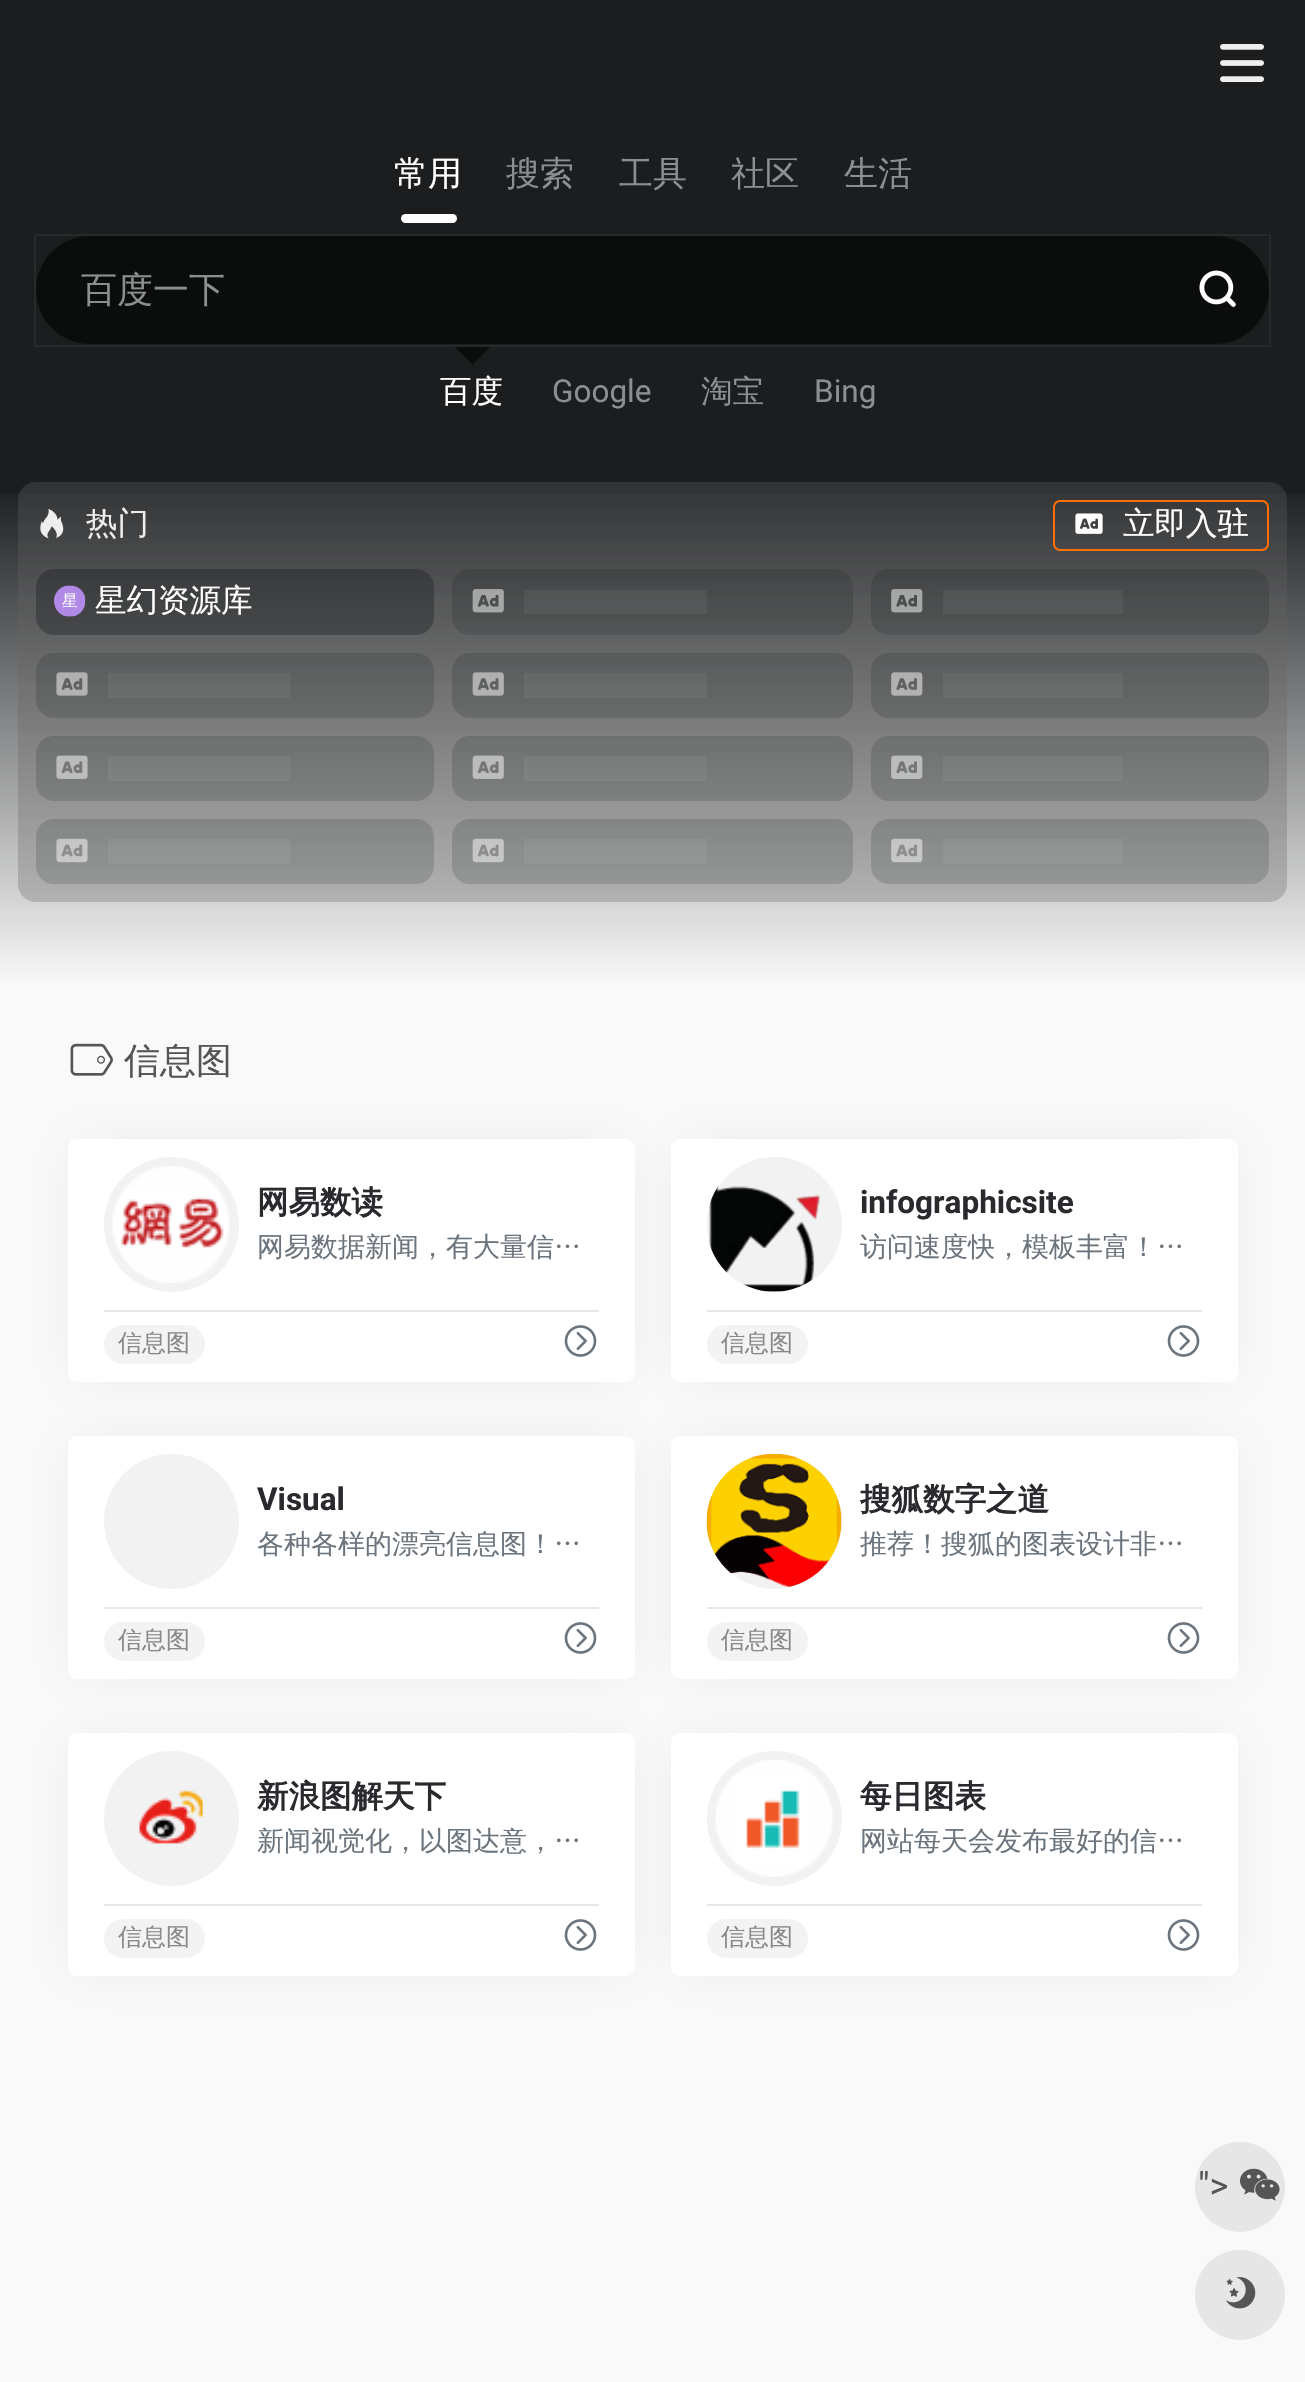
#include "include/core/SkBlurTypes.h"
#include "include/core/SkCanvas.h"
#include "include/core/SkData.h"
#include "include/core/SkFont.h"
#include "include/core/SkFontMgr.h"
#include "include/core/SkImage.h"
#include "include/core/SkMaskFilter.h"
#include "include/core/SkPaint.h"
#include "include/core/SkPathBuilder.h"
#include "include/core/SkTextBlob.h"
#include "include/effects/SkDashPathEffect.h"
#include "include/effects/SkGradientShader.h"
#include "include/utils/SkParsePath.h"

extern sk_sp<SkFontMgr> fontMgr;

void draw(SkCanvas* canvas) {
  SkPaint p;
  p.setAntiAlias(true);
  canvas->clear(SkColorSetRGB(249, 249, 249));
  p.setColor(SkColorSetRGB(27, 29, 31));
  canvas->drawRect(SkRect::MakeLTRB(0, 0, 1305, 983), p);
  canvas->drawImageRect(SkImages::DeferredFromEncodedData(SkData::MakeFromFileName("images/1.png")), SkRect::MakeLTRB(1220, 44, 1264, 82), SkSamplingOptions());
  p.setColor(SK_ColorWHITE);
  canvas->drawRoundRect(SkRect::MakeLTRB(401, 214, 457, 223), 4.5f, 4.5f, p);
  p.setColor(SkColorSetRGB(11, 12, 12));
  canvas->drawRoundRect(SkRect::MakeLTRB(36, 236, 1269, 344), 54, 54, p);
  p.setStyle(SkPaint::kStroke_Style);
  p.setStrokeWidth(2);
  p.setColor(SkColorSetARGB(13, 255, 255, 255));
  canvas->drawRect(SkRect::MakeLTRB(35, 235, 1270, 346), p);
  canvas->drawImageRect(SkImages::DeferredFromEncodedData(SkData::MakeFromFileName("images/2.png")), SkRect::MakeLTRB(1199, 270, 1236, 307), SkSamplingOptions());
  canvas->save();
  canvas->clipRect(SkRect::MakeLTRB(405, 347, 900, 428));
  p.setStyle(SkPaint::kFill_Style);
  p.setColor(SkColorSetRGB(11, 12, 12));
  canvas->drawPath(SkPathBuilder().moveTo(454.5f, 346.5f).lineTo(490.5f, 346.5f).lineTo(472.5f, 364.5f).close().detach(), p);
  canvas->restore();
  {
    const SkColor colors[] = {SkColorSetRGB(249, 249, 249), SkColorSetARGB(0, 249, 249, 249)};
    const float stops[] = {0, 0.8f};
    const SkPoint ends[] = {{653, 986}, {653, 356}};
    p.setShader(SkGradientShader::MakeLinear(ends, colors, stops, 2, SkTileMode::kClamp));
    p.setAlpha(255);
  }
  canvas->drawRect(SkRect::MakeLTRB(0, 493, 1305, 983), p);
  p.setShader(nullptr);
  p.setColor(SkColorSetARGB(77, 100, 100, 100));
  canvas->drawRoundRect(SkRect::MakeLTRB(18, 482, 1287, 902), 18, 18, p);
  canvas->drawImageRect(SkImages::DeferredFromEncodedData(SkData::MakeFromFileName("images/3.png")), SkRect::MakeLTRB(40, 509, 64, 539), SkSamplingOptions());
  p.setStyle(SkPaint::kStroke_Style);
  p.setColor(SkColorSetRGB(255, 111, 6));
  canvas->drawRoundRect(SkRect::MakeLTRB(1054, 501, 1268, 550), 6, 6, p);
  canvas->drawImageRect(SkImages::DeferredFromEncodedData(SkData::MakeFromFileName("images/4.png")), SkRect::MakeLTRB(1075, 513, 1103, 534), SkSamplingOptions());
  p.setStyle(SkPaint::kFill_Style);
  p.setColor(SkColorSetARGB(77, 10, 12, 15));
  canvas->drawRoundRect(SkRect::MakeLTRB(36, 569, 434, 635), 18, 18, p);
  canvas->drawImageRect(SkImages::DeferredFromEncodedData(SkData::MakeFromFileName("images/5.png")), SkRect::MakeLTRB(54, 585, 86, 617), SkSamplingOptions());
  p.setColor(SkColorSetARGB(38, 10, 12, 15));
  canvas->drawRoundRect(SkRect::MakeLTRB(452, 569, 853, 635), 18, 18, p);
  canvas->drawImageRect(SkImages::DeferredFromEncodedData(SkData::MakeFromFileName("images/6.png")), SkRect::MakeLTRB(472, 589, 504, 613), SkSamplingOptions());
  p.setColor(SkColorSetARGB(13, 255, 255, 255));
  canvas->drawRect(SkRect::MakeLTRB(524, 590, 707, 614), p);
  p.setColor(SkColorSetARGB(38, 10, 12, 15));
  canvas->drawRoundRect(SkRect::MakeLTRB(871, 569, 1269, 635), 18, 18, p);
  canvas->drawImageRect(SkImages::DeferredFromEncodedData(SkData::MakeFromFileName("images/7.png")), SkRect::MakeLTRB(891, 589, 923, 613), SkSamplingOptions());
  p.setColor(SkColorSetARGB(13, 255, 255, 255));
  canvas->drawRect(SkRect::MakeLTRB(943, 590, 1123, 614), p);
  p.setColor(SkColorSetARGB(38, 10, 12, 15));
  canvas->drawRoundRect(SkRect::MakeLTRB(36, 653, 434, 718), 18, 18, p);
  canvas->drawImageRect(SkImages::DeferredFromEncodedData(SkData::MakeFromFileName("images/8.png")), SkRect::MakeLTRB(56, 672, 88, 696), SkSamplingOptions());
  p.setColor(SkColorSetARGB(13, 255, 255, 255));
  canvas->drawRect(SkRect::MakeLTRB(108, 673, 290, 698), p);
  p.setColor(SkColorSetARGB(38, 10, 12, 15));
  canvas->drawRoundRect(SkRect::MakeLTRB(452, 653, 853, 718), 18, 18, p);
  canvas->drawImageRect(SkImages::DeferredFromEncodedData(SkData::MakeFromFileName("images/9.png")), SkRect::MakeLTRB(472, 672, 504, 696), SkSamplingOptions());
  p.setColor(SkColorSetARGB(13, 255, 255, 255));
  canvas->drawRect(SkRect::MakeLTRB(524, 673, 707, 698), p);
  p.setColor(SkColorSetARGB(38, 10, 12, 15));
  canvas->drawRoundRect(SkRect::MakeLTRB(871, 653, 1269, 718), 18, 18, p);
  canvas->drawImageRect(SkImages::DeferredFromEncodedData(SkData::MakeFromFileName("images/10.png")), SkRect::MakeLTRB(891, 672, 923, 696), SkSamplingOptions());
  p.setColor(SkColorSetARGB(13, 255, 255, 255));
  canvas->drawRect(SkRect::MakeLTRB(943, 673, 1123, 698), p);
  p.setColor(SkColorSetARGB(38, 10, 12, 15));
  canvas->drawRoundRect(SkRect::MakeLTRB(36, 736, 434, 801), 18, 18, p);
  canvas->drawImageRect(SkImages::DeferredFromEncodedData(SkData::MakeFromFileName("images/11.png")), SkRect::MakeLTRB(56, 755, 88, 779), SkSamplingOptions());
  p.setColor(SkColorSetARGB(13, 255, 255, 255));
  canvas->drawRect(SkRect::MakeLTRB(108, 756, 290, 781), p);
  p.setColor(SkColorSetARGB(38, 10, 12, 15));
  canvas->drawRoundRect(SkRect::MakeLTRB(452, 736, 853, 801), 18, 18, p);
  canvas->drawImageRect(SkImages::DeferredFromEncodedData(SkData::MakeFromFileName("images/12.png")), SkRect::MakeLTRB(472, 755, 504, 779), SkSamplingOptions());
  p.setColor(SkColorSetARGB(13, 255, 255, 255));
  canvas->drawRect(SkRect::MakeLTRB(524, 756, 707, 781), p);
  p.setColor(SkColorSetARGB(38, 10, 12, 15));
  canvas->drawRoundRect(SkRect::MakeLTRB(871, 736, 1269, 801), 18, 18, p);
  canvas->drawImageRect(SkImages::DeferredFromEncodedData(SkData::MakeFromFileName("images/13.png")), SkRect::MakeLTRB(891, 755, 923, 779), SkSamplingOptions());
  p.setColor(SkColorSetARGB(13, 255, 255, 255));
  canvas->drawRect(SkRect::MakeLTRB(943, 756, 1123, 781), p);
  p.setColor(SkColorSetARGB(38, 10, 12, 15));
  canvas->drawRoundRect(SkRect::MakeLTRB(36, 819, 434, 884), 18, 18, p);
  canvas->drawImageRect(SkImages::DeferredFromEncodedData(SkData::MakeFromFileName("images/14.png")), SkRect::MakeLTRB(56, 838, 88, 863), SkSamplingOptions());
  p.setColor(SkColorSetARGB(13, 255, 255, 255));
  canvas->drawRect(SkRect::MakeLTRB(108, 839, 290, 864), p);
  p.setColor(SkColorSetARGB(38, 10, 12, 15));
  canvas->drawRoundRect(SkRect::MakeLTRB(452, 819, 853, 884), 18, 18, p);
  canvas->drawImageRect(SkImages::DeferredFromEncodedData(SkData::MakeFromFileName("images/15.png")), SkRect::MakeLTRB(472, 838, 504, 863), SkSamplingOptions());
  p.setColor(SkColorSetARGB(13, 255, 255, 255));
  canvas->drawRect(SkRect::MakeLTRB(524, 839, 707, 864), p);
  p.setColor(SkColorSetARGB(38, 10, 12, 15));
  canvas->drawRoundRect(SkRect::MakeLTRB(871, 819, 1269, 884), 18, 18, p);
  canvas->drawImageRect(SkImages::DeferredFromEncodedData(SkData::MakeFromFileName("images/16.png")), SkRect::MakeLTRB(891, 838, 923, 863), SkSamplingOptions());
  p.setColor(SkColorSetARGB(13, 255, 255, 255));
  canvas->drawRect(SkRect::MakeLTRB(943, 839, 1123, 864), p);
  canvas->drawImageRect(SkImages::DeferredFromEncodedData(SkData::MakeFromFileName("images/17.png")), SkRect::MakeLTRB(70, 1043, 113, 1076), SkSamplingOptions());
  p.setColor(SkColorSetARGB(51, 158, 158, 158));
  p.setMaskFilter(SkMaskFilter::MakeBlur(kNormal_SkBlurStyle, 22.5f));
  canvas->drawRect(SkRect::MakeLTRB(79, 1150, 623, 1370), p);
  p.setMaskFilter(nullptr);
  p.setColor(SK_ColorWHITE);
  canvas->drawRoundRect(SkRect::MakeLTRB(68, 1139, 635, 1382), 9, 9, p);
  p.setColor(SkColorSetRGB(242, 242, 242));
  canvas->drawCircle(171.5f, 1224.5f, 67.5f, p);
  canvas->drawImageRect(SkImages::DeferredFromEncodedData(SkData::MakeFromFileName("images/18.png")), SkRect::MakeLTRB(112, 1166, 230, 1283), SkSamplingOptions());
  p.setColor(SkColorSetRGB(231, 231, 231));
  canvas->drawRect(SkRect::MakeLTRB(104, 1310, 599, 1312), p);
  p.setColor(SkColorSetRGB(243, 243, 243));
  canvas->drawRoundRect(SkRect::MakeLTRB(104, 1325, 205, 1364), 19.5f, 19.5f, p);
  canvas->drawImageRect(SkImages::DeferredFromEncodedData(SkData::MakeFromFileName("images/19.png")), SkRect::MakeLTRB(564, 1325, 597, 1357), SkSamplingOptions());
  p.setColor(SkColorSetARGB(51, 158, 158, 158));
  p.setMaskFilter(SkMaskFilter::MakeBlur(kNormal_SkBlurStyle, 22.5f));
  canvas->drawRect(SkRect::MakeLTRB(682, 1150, 1226, 1370), p);
  p.setMaskFilter(nullptr);
  p.setColor(SK_ColorWHITE);
  canvas->drawRoundRect(SkRect::MakeLTRB(671, 1139, 1238, 1382), 9, 9, p);
  p.setColor(SkColorSetRGB(242, 242, 242));
  canvas->drawCircle(774.5f, 1224.5f, 67.5f, p);
  canvas->drawImageRect(SkImages::DeferredFromEncodedData(SkData::MakeFromFileName("images/20.png")), SkRect::MakeLTRB(709, 1185, 820, 1292), SkSamplingOptions());
  p.setColor(SkColorSetRGB(231, 231, 231));
  canvas->drawRect(SkRect::MakeLTRB(707, 1310, 1202, 1312), p);
  p.setColor(SkColorSetRGB(243, 243, 243));
  canvas->drawRoundRect(SkRect::MakeLTRB(707, 1325, 808, 1364), 19.5f, 19.5f, p);
  canvas->drawImageRect(SkImages::DeferredFromEncodedData(SkData::MakeFromFileName("images/19.png")), SkRect::MakeLTRB(1167, 1325, 1200, 1357), SkSamplingOptions());
  p.setColor(SkColorSetARGB(51, 158, 158, 158));
  p.setMaskFilter(SkMaskFilter::MakeBlur(kNormal_SkBlurStyle, 22.5f));
  canvas->drawRect(SkRect::MakeLTRB(79, 1447, 623, 1667), p);
  p.setMaskFilter(nullptr);
  p.setColor(SK_ColorWHITE);
  canvas->drawRoundRect(SkRect::MakeLTRB(68, 1436, 635, 1679), 9, 9, p);
  p.setColor(SkColorSetRGB(242, 242, 242));
  canvas->drawCircle(171.5f, 1521.5f, 67.5f, p);
  p.setColor(SkColorSetRGB(231, 231, 231));
  canvas->drawRect(SkRect::MakeLTRB(104, 1607, 599, 1609), p);
  p.setColor(SkColorSetRGB(243, 243, 243));
  canvas->drawRoundRect(SkRect::MakeLTRB(104, 1622, 205, 1661), 19.5f, 19.5f, p);
  canvas->drawImageRect(SkImages::DeferredFromEncodedData(SkData::MakeFromFileName("images/19.png")), SkRect::MakeLTRB(564, 1622, 597, 1654), SkSamplingOptions());
  p.setColor(SkColorSetARGB(51, 158, 158, 158));
  p.setMaskFilter(SkMaskFilter::MakeBlur(kNormal_SkBlurStyle, 22.5f));
  canvas->drawRect(SkRect::MakeLTRB(682, 1447, 1226, 1667), p);
  p.setMaskFilter(nullptr);
  p.setColor(SK_ColorWHITE);
  canvas->drawRoundRect(SkRect::MakeLTRB(671, 1436, 1238, 1679), 9, 9, p);
  p.setColor(SkColorSetRGB(242, 242, 242));
  canvas->drawCircle(774.5f, 1521.5f, 67.5f, p);
  canvas->drawImageRect(SkImages::DeferredFromEncodedData(SkData::MakeFromFileName("images/21.png")), SkRect::MakeLTRB(706, 1453, 842, 1587), SkSamplingOptions());
  p.setColor(SkColorSetRGB(231, 231, 231));
  canvas->drawRect(SkRect::MakeLTRB(707, 1607, 1202, 1609), p);
  p.setColor(SkColorSetRGB(243, 243, 243));
  canvas->drawRoundRect(SkRect::MakeLTRB(707, 1622, 808, 1661), 19.5f, 19.5f, p);
  canvas->drawImageRect(SkImages::DeferredFromEncodedData(SkData::MakeFromFileName("images/19.png")), SkRect::MakeLTRB(1167, 1622, 1200, 1654), SkSamplingOptions());
  p.setColor(SkColorSetARGB(51, 158, 158, 158));
  p.setMaskFilter(SkMaskFilter::MakeBlur(kNormal_SkBlurStyle, 22.5f));
  canvas->drawRect(SkRect::MakeLTRB(79, 1744, 623, 1964), p);
  p.setMaskFilter(nullptr);
  p.setColor(SK_ColorWHITE);
  canvas->drawRoundRect(SkRect::MakeLTRB(68, 1733, 635, 1976), 9, 9, p);
  p.setColor(SkColorSetRGB(242, 242, 242));
  canvas->drawCircle(171.5f, 1818.5f, 67.5f, p);
  canvas->drawImageRect(SkImages::DeferredFromEncodedData(SkData::MakeFromFileName("images/22.png")), SkRect::MakeLTRB(139, 1790, 204, 1844), SkSamplingOptions());
  p.setColor(SkColorSetRGB(231, 231, 231));
  canvas->drawRect(SkRect::MakeLTRB(104, 1904, 599, 1906), p);
  p.setColor(SkColorSetRGB(243, 243, 243));
  canvas->drawRoundRect(SkRect::MakeLTRB(104, 1919, 205, 1958), 19.5f, 19.5f, p);
  canvas->drawImageRect(SkImages::DeferredFromEncodedData(SkData::MakeFromFileName("images/19.png")), SkRect::MakeLTRB(564, 1919, 597, 1951), SkSamplingOptions());
  p.setColor(SkColorSetARGB(51, 158, 158, 158));
  p.setMaskFilter(SkMaskFilter::MakeBlur(kNormal_SkBlurStyle, 22.5f));
  canvas->drawRect(SkRect::MakeLTRB(682, 1744, 1226, 1964), p);
  p.setMaskFilter(nullptr);
  p.setColor(SK_ColorWHITE);
  canvas->drawRoundRect(SkRect::MakeLTRB(671, 1733, 1238, 1976), 9, 9, p);
  p.setColor(SkColorSetRGB(242, 242, 242));
  canvas->drawCircle(774.5f, 1818.5f, 67.5f, p);
  canvas->drawImageRect(SkImages::DeferredFromEncodedData(SkData::MakeFromFileName("images/23.png")), SkRect::MakeLTRB(715, 1760, 833, 1877), SkSamplingOptions());
  p.setColor(SkColorSetRGB(231, 231, 231));
  canvas->drawRect(SkRect::MakeLTRB(707, 1904, 1202, 1906), p);
  p.setColor(SkColorSetRGB(243, 243, 243));
  canvas->drawRoundRect(SkRect::MakeLTRB(707, 1919, 808, 1958), 19.5f, 19.5f, p);
  canvas->drawImageRect(SkImages::DeferredFromEncodedData(SkData::MakeFromFileName("images/19.png")), SkRect::MakeLTRB(1167, 1919, 1200, 1951), SkSamplingOptions());
  p.setColor(SkColorSetRGB(230, 230, 230));
  canvas->drawCircle(1240, 2187, 45, p);
  canvas->drawImageRect(SkImages::DeferredFromEncodedData(SkData::MakeFromFileName("images/24.png")), SkRect::MakeLTRB(1240, 2168, 1280, 2201), SkSamplingOptions());
  canvas->drawCircle(1240, 2295, 45, p);
  canvas->drawImageRect(SkImages::DeferredFromEncodedData(SkData::MakeFromFileName("images/25.png")), SkRect::MakeLTRB(1226, 2277, 1256, 2309), SkSamplingOptions());
  SkFont font1(fontMgr->matchFamilyStyle("WenQuanYi Zen Hei", SkFontStyle(500, SkFontStyle::kNormal_Width, SkFontStyle::kUpright_Slant)), 34);
  font1.setSubpixel(true);
  p.setColor(SK_ColorWHITE);
  canvas->drawString("常用", 394, 185, font1, p);
  p.setColor(SkColorSetRGB(141, 142, 143));
  canvas->drawString("搜索", 506, 185, font1, p);
  canvas->drawString("工具", 619, 185, font1, p);
  canvas->drawString("社区", 731, 185, font1, p);
  canvas->drawString("生活", 844, 185, font1, p);
  SkFont font2(fontMgr->matchFamilyStyle("WenQuanYi Zen Hei", SkFontStyle(500, SkFontStyle::kNormal_Width, SkFontStyle::kUpright_Slant)), 36);
  font2.setSubpixel(true);
  canvas->drawString("百度一下", 81, 302, font2, p);
  SkFont font3(fontMgr->matchFamilyStyle("WenQuanYi Zen Hei", SkFontStyle(500, SkFontStyle::kNormal_Width, SkFontStyle::kUpright_Slant)), 31.5f);
  font3.setSubpixel(true);
  p.setColor(SK_ColorWHITE);
  canvas->drawString("百度", 440, 402, font3, p);
  SkFont font4(fontMgr->matchFamilyStyle("Roboto", SkFontStyle::Normal()), 31.5f);
  font4.setSubpixel(true);
  p.setColor(SkColorSetRGB(141, 142, 143));
  canvas->drawString("Google", 552, 402, font4, p);
  canvas->drawString("淘宝", 701, 402, font3, p);
  canvas->drawString("Bing", 814, 402, font4, p);
  p.setColor(SkColorSetRGB(238, 238, 238));
  canvas->drawString("热门", 86, 534, font3, p);
  p.setColor(SK_ColorWHITE);
  canvas->drawString("立即入驻", 1123, 534, font3, p);
  canvas->drawString("星幻资源库", 95, 611, font3, p);
  p.setColor(SkColorSetRGB(85, 85, 85));
  canvas->drawString("信息图", 124, 1073, font2, p);
  SkFont font5(fontMgr->matchFamilyStyle("WenQuanYi Zen Hei", SkFontStyle::Bold()), 31.5f);
  font5.setSubpixel(true);
  p.setColor(SkColorSetRGB(40, 42, 45));
  canvas->drawString("网易数读", 257, 1213, font5, p);
  SkFont font6(fontMgr->matchFamilyStyle("WenQuanYi Zen Hei", SkFontStyle(500, SkFontStyle::kNormal_Width, SkFontStyle::kUpright_Slant)), 27);
  font6.setSubpixel(true);
  p.setColor(SkColorSetRGB(108, 117, 125));
  canvas->drawString("网易数据新闻，有大量信…", 257, 1256, font6, p);
  SkFont font7(fontMgr->matchFamilyStyle("WenQuanYi Zen Hei", SkFontStyle(500, SkFontStyle::kNormal_Width, SkFontStyle::kUpright_Slant)), 24);
  font7.setSubpixel(true);
  p.setColor(SkColorSetRGB(136, 136, 136));
  canvas->drawString("信息图", 118, 1351, font7, p);
  SkFont font8(fontMgr->matchFamilyStyle("Roboto", SkFontStyle::Bold()), 31.5f);
  font8.setSubpixel(true);
  p.setColor(SkColorSetRGB(40, 42, 45));
  canvas->drawString("infographicsite", 860, 1213, font8, p);
  p.setColor(SkColorSetRGB(108, 117, 125));
  canvas->drawString("访问速度快，模板丰富！…", 860, 1256, font6, p);
  p.setColor(SkColorSetRGB(136, 136, 136));
  canvas->drawString("信息图", 721, 1351, font7, p);
  p.setColor(SkColorSetRGB(40, 42, 45));
  canvas->drawString("Visual", 257, 1510, font8, p);
  p.setColor(SkColorSetRGB(108, 117, 125));
  canvas->drawString("各种各样的漂亮信息图！…", 257, 1553, font6, p);
  p.setColor(SkColorSetRGB(136, 136, 136));
  canvas->drawString("信息图", 118, 1648, font7, p);
  p.setColor(SkColorSetRGB(40, 42, 45));
  canvas->drawString("搜狐数字之道", 860, 1510, font5, p);
  p.setColor(SkColorSetRGB(108, 117, 125));
  canvas->drawString("推荐！搜狐的图表设计非…", 860, 1553, font6, p);
  p.setColor(SkColorSetRGB(136, 136, 136));
  canvas->drawString("信息图", 721, 1648, font7, p);
  p.setColor(SkColorSetRGB(40, 42, 45));
  canvas->drawString("新浪图解天下", 257, 1807, font5, p);
  p.setColor(SkColorSetRGB(108, 117, 125));
  canvas->drawString("新闻视觉化，以图达意，…", 257, 1850, font6, p);
  p.setColor(SkColorSetRGB(136, 136, 136));
  canvas->drawString("信息图", 118, 1945, font7, p);
  p.setColor(SkColorSetRGB(40, 42, 45));
  canvas->drawString("每日图表", 860, 1807, font5, p);
  p.setColor(SkColorSetRGB(108, 117, 125));
  canvas->drawString("网站每天会发布最好的信…", 860, 1850, font6, p);
  p.setColor(SkColorSetRGB(136, 136, 136));
  canvas->drawString("信息图", 721, 1945, font7, p);
  SkFont font9(fontMgr->matchFamilyStyle("Roboto", SkFontStyle::Normal()), 36);
  font9.setSubpixel(true);
  p.setColor(SkColorSetRGB(85, 85, 85));
  canvas->drawString("\">", 1198, 2198, font9, p);
}
